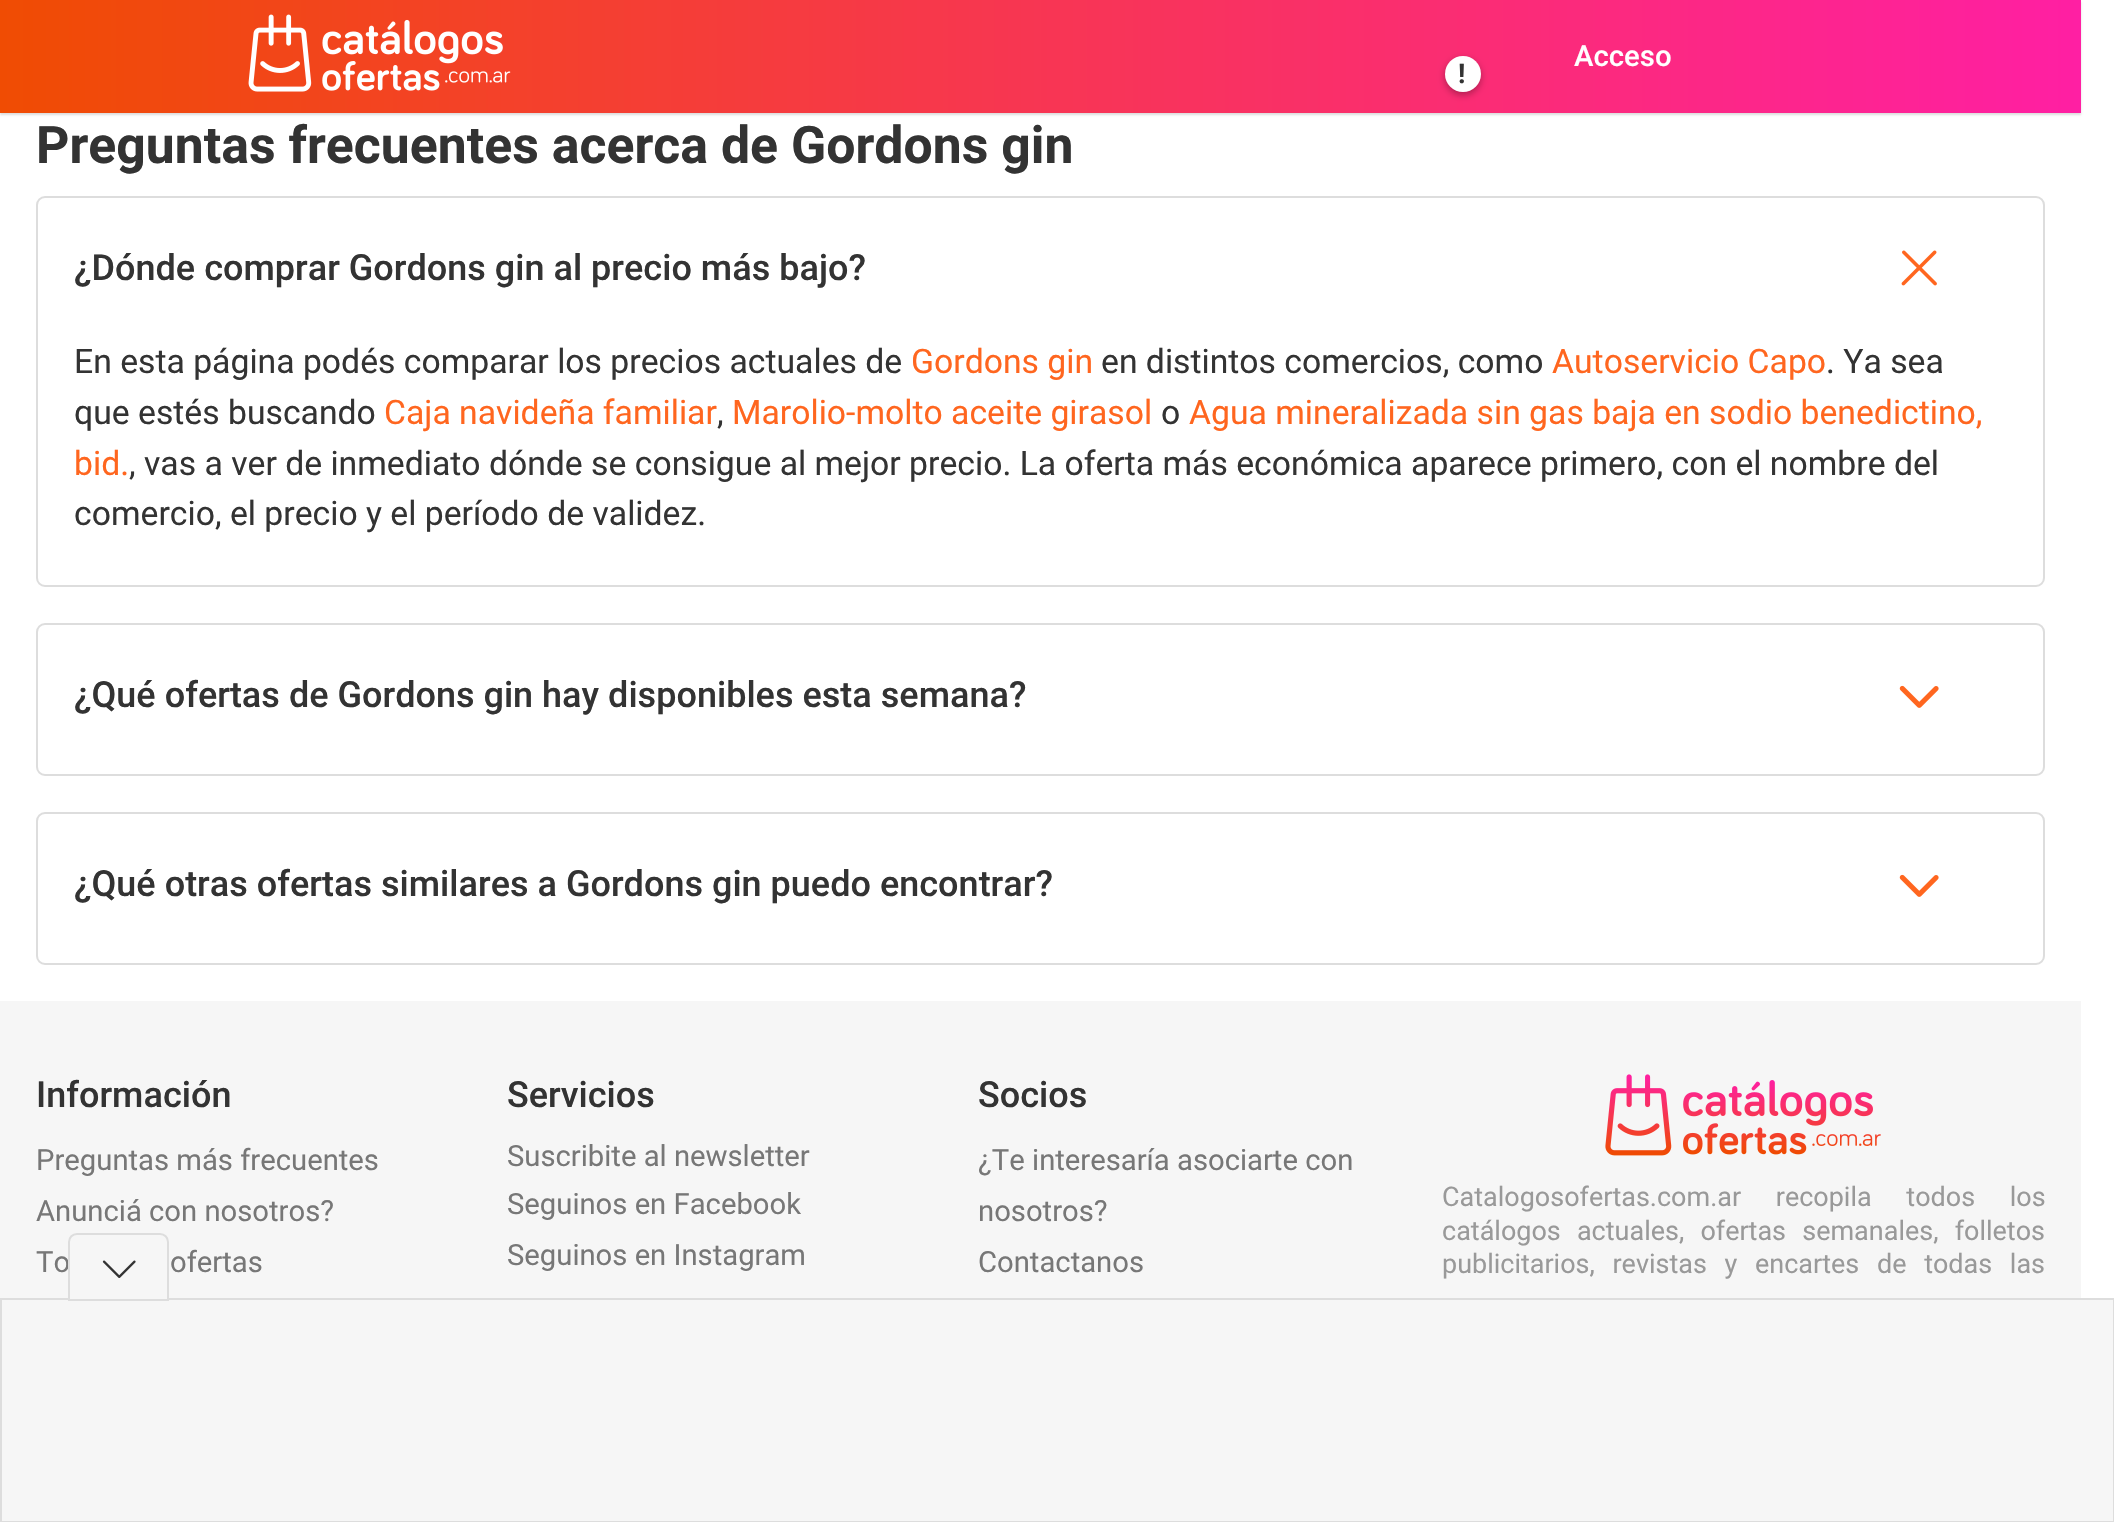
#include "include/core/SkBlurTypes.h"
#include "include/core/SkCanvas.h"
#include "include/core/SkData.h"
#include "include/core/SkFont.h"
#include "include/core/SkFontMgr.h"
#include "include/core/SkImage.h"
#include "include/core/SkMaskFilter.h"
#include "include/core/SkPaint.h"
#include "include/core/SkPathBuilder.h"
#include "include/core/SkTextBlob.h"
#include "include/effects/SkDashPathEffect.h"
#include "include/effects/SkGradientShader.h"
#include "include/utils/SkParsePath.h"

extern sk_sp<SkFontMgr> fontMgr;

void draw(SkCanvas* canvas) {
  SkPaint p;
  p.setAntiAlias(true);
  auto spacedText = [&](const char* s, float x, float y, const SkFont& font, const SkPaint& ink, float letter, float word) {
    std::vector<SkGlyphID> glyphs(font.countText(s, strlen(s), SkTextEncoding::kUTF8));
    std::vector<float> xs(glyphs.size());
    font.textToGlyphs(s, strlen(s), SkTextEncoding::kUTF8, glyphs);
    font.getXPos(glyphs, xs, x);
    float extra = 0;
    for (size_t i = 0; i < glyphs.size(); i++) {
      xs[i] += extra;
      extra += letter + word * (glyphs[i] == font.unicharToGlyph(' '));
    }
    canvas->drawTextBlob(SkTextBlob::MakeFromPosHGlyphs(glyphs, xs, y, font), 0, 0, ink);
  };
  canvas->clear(SK_ColorWHITE);
  p.setColor(SkColorSetRGB(221, 221, 221));
  p.setMaskFilter(SkMaskFilter::MakeBlur(kNormal_SkBlurStyle, 1));
  canvas->drawRect(SkRect::MakeLTRB(0, 2, 2081, 115), p);
  p.setMaskFilter(nullptr);
  {
    const SkColor colors[] = {SkColorSetRGB(255, 31, 163), SkColorSetRGB(240, 76, 3)};
    const float stops[] = {0, 1};
    const SkPoint ends[] = {{2081, 56}, {0, 56}};
    p.setShader(SkGradientShader::MakeLinear(ends, colors, stops, 2, SkTileMode::kClamp));
    p.setAlpha(255);
  }
  canvas->drawRect(SkRect::MakeLTRB(0, 0, 2081, 113), p);
  canvas->drawImageRect(SkImages::DeferredFromEncodedData(SkData::MakeFromFileName("images/1.png")), SkRect::MakeLTRB(248, 14, 511, 92), SkSamplingOptions());
  p.setShader(nullptr);
  p.setColor(SkColorSetARGB(77, 0, 0, 0));
  p.setMaskFilter(SkMaskFilter::MakeBlur(kNormal_SkBlurStyle, 3.5f));
  canvas->drawRoundRect(SkRect::MakeLTRB(1445, 59, 1481, 95), 18, 18, p);
  p.setMaskFilter(nullptr);
  p.setColor(SK_ColorWHITE);
  canvas->drawCircle(1463, 74, 18, p);
  p.setStyle(SkPaint::kStroke_Style);
  p.setStrokeWidth(2);
  p.setColor(SkColorSetRGB(221, 221, 221));
  canvas->drawRoundRect(SkRect::MakeLTRB(37, 197, 2044, 586), 8, 8, p);
  canvas->drawImageRect(SkImages::DeferredFromEncodedData(SkData::MakeFromFileName("images/2.png")), SkRect::MakeLTRB(1901, 250, 1937, 286), SkSamplingOptions());
  canvas->drawRoundRect(SkRect::MakeLTRB(37, 624, 2044, 775), 8, 8, p);
  canvas->drawImageRect(SkImages::DeferredFromEncodedData(SkData::MakeFromFileName("images/3.png")), SkRect::MakeLTRB(1899, 685, 1939, 708), SkSamplingOptions());
  canvas->drawRoundRect(SkRect::MakeLTRB(37, 813, 2044, 964), 8, 8, p);
  canvas->drawImageRect(SkImages::DeferredFromEncodedData(SkData::MakeFromFileName("images/3.png")), SkRect::MakeLTRB(1899, 874, 1939, 897), SkSamplingOptions());
  p.setStyle(SkPaint::kFill_Style);
  p.setColor(SkColorSetRGB(246, 246, 246));
  canvas->drawRect(SkRect::MakeLTRB(0, 1001, 2081, 1298), p);
  canvas->drawImageRect(SkImages::DeferredFromEncodedData(SkData::MakeFromFileName("images/4.png")), SkRect::MakeLTRB(1605, 1074, 1881, 1156), SkSamplingOptions());
  canvas->drawRect(SkRect::MakeLTRB(1, 1299, 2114, 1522), p);
  p.setStyle(SkPaint::kStroke_Style);
  p.setColor(SkColorSetRGB(221, 221, 221));
  canvas->drawRect(SkRect::MakeLTRB(1, 1299, 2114, 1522), p);
  SkFont font1(fontMgr->matchFamilyStyle("Roboto", SkFontStyle(500, SkFontStyle::kNormal_Width, SkFontStyle::kUpright_Slant)), 29.25f);
  font1.setSubpixel(true);
  p.setStyle(SkPaint::kFill_Style);
  p.setColor(SK_ColorWHITE);
  canvas->drawString("Acceso", 1574, 66, font1, p);
  SkFont font2(fontMgr->matchFamilyStyle("Roboto", SkFontStyle::Bold()), 27);
  font2.setSubpixel(true);
  p.setColor(SkColorSetRGB(51, 51, 51));
  canvas->drawString("!", 1458, 83, font2, p);
  SkFont font3(fontMgr->matchFamilyStyle("Roboto", SkFontStyle::Bold()), 51.75f);
  font3.setSubpixel(true);
  canvas->drawString("Preguntas frecuentes acerca de Gordons gin", 36, 163, font3, p);
  SkFont font4(fontMgr->matchFamilyStyle("Roboto", SkFontStyle(500, SkFontStyle::kNormal_Width, SkFontStyle::kUpright_Slant)), 36);
  font4.setSubpixel(true);
  canvas->drawString("¿Dónde comprar Gordons gin al precio más bajo?", 74, 280, font4, p);
  SkFont font5(fontMgr->matchFamilyStyle("Roboto", SkFontStyle::Normal()), 33.75f);
  font5.setSubpixel(true);
  canvas->drawString("En esta página podés comparar los precios actuales de", 74, 373, font5, p);
  p.setColor(SkColorSetRGB(255, 102, 31));
  canvas->drawString("Gordons gin", 911, 373, font5, p);
  p.setColor(SkColorSetRGB(51, 51, 51));
  canvas->drawString("en distintos comercios, como", 1101, 373, font5, p);
  p.setColor(SkColorSetRGB(255, 102, 31));
  canvas->drawString("Autoservicio Capo", 1552, 373, font5, p);
  p.setColor(SkColorSetRGB(51, 51, 51));
  canvas->drawString(". Ya sea", 1826, 373, font5, p);
  canvas->drawString("que estés buscando", 74, 424, font5, p);
  p.setColor(SkColorSetRGB(255, 102, 31));
  canvas->drawString("Caja navideña familiar", 384, 424, font5, p);
  p.setColor(SkColorSetRGB(51, 51, 51));
  canvas->drawString(",", 717, 424, font5, p);
  p.setColor(SkColorSetRGB(255, 102, 31));
  canvas->drawString("Marolio-molto aceite girasol", 732, 424, font5, p);
  p.setColor(SkColorSetRGB(51, 51, 51));
  canvas->drawString("o", 1161, 424, font5, p);
  p.setColor(SkColorSetRGB(255, 102, 31));
  canvas->drawString("Agua mineralizada sin gas baja en sodio benedictino,", 1189, 424, font5, p);
  canvas->drawString("bid.", 74, 475, font5, p);
  p.setColor(SkColorSetRGB(51, 51, 51));
  canvas->drawString(", vas a ver de inmediato dónde se consigue al mejor precio. La oferta más económica aparece primero, con el nombre del", 129, 475, font5, p);
  canvas->drawString("comercio, el precio y el período de validez.", 74, 525, font5, p);
  canvas->drawString("¿Qué ofertas de Gordons gin hay disponibles esta semana?", 74, 707, font4, p);
  canvas->drawString("¿Qué otras ofertas similares a Gordons gin puedo encontrar?", 74, 896, font4, p);
  canvas->drawString("Información", 36, 1107, font4, p);
  SkFont font6(fontMgr->matchFamilyStyle("Roboto", SkFontStyle::Normal()), 29.25f);
  font6.setSubpixel(true);
  p.setColor(SkColorSetRGB(119, 119, 119));
  canvas->drawString("Preguntas más frecuentes", 36, 1170, font6, p);
  canvas->drawString("Anunciá con nosotros?", 36, 1221, font6, p);
  canvas->drawString("To", 36, 1272, font6, p);
  canvas->drawString("ofertas", 170, 1272, font6, p);
  p.setColor(SkColorSetRGB(51, 51, 51));
  canvas->drawString("Servicios", 507, 1107, font4, p);
  p.setColor(SkColorSetRGB(119, 119, 119));
  canvas->drawString("Suscribite al newsletter", 507, 1166, font6, p);
  canvas->drawString("Seguinos en Facebook", 507, 1214, font6, p);
  canvas->drawString("Seguinos en Instagram", 507, 1265, font6, p);
  p.setColor(SkColorSetRGB(51, 51, 51));
  canvas->drawString("Socios", 978, 1107, font4, p);
  p.setColor(SkColorSetRGB(119, 119, 119));
  canvas->drawString("¿Te interesaría asociarte con", 978, 1170, font6, p);
  canvas->drawString("nosotros?", 978, 1221, font6, p);
  canvas->drawString("Contactanos", 978, 1272, font6, p);
  SkFont font7(fontMgr->matchFamilyStyle("Roboto", SkFontStyle::Normal()), 27);
  font7.setSubpixel(true);
  p.setColor(SkColorSetRGB(153, 153, 153));
  spacedText("Catalogosofertas.com.ar recopila todos los", 1442, 1206, font7, p, 0, 28);
  spacedText("catálogos actuales, ofertas semanales, folletos", 1442, 1240, font7, p, 0, 9.5f);
  spacedText("publicitarios, revistas y encartes de todas las", 1442, 1273, font7, p, 0, 11);
  p.setColor(SkColorSetRGB(246, 246, 246));
  canvas->drawPath(SkPathBuilder().moveTo(77, 1234).lineTo(160, 1234).cubicTo(164.5f, 1234, 168, 1237.5f, 168, 1242).lineTo(168, 1300).lineTo(69, 1300).lineTo(69, 1242).cubicTo(69, 1237.5f, 72.5f, 1234, 77, 1234).close().detach(), p);
  p.setStyle(SkPaint::kStroke_Style);
  p.setColor(SkColorSetRGB(221, 221, 221));
  canvas->drawPath(SkPathBuilder().moveTo(77, 1234).lineTo(160, 1234).cubicTo(164.5f, 1234, 168, 1237.5f, 168, 1242).lineTo(168, 1300).lineTo(69, 1300).lineTo(69, 1242).cubicTo(69, 1237.5f, 72.5f, 1234, 77, 1234).close().detach(), p);
  canvas->drawImageRect(SkImages::DeferredFromEncodedData(SkData::MakeFromFileName("images/5.png")), SkRect::MakeLTRB(102, 1260, 136, 1278), SkSamplingOptions());
}
